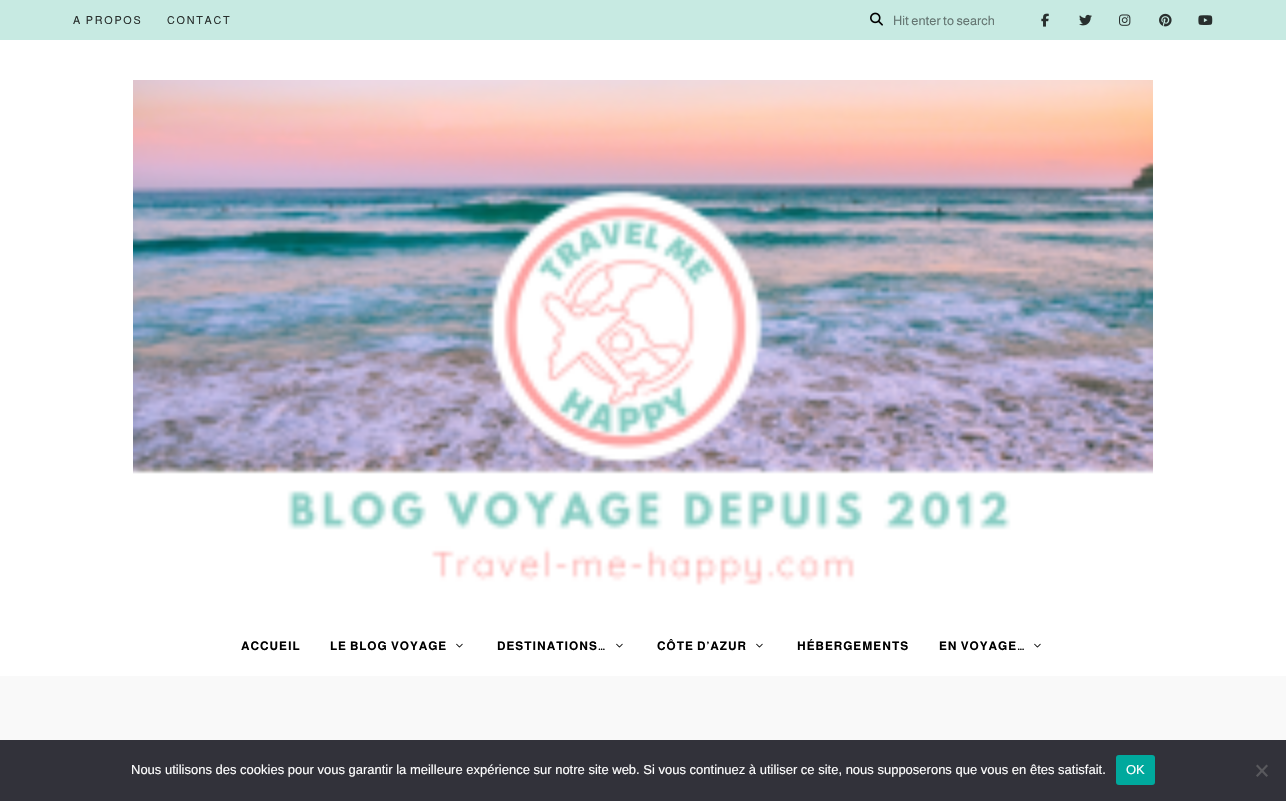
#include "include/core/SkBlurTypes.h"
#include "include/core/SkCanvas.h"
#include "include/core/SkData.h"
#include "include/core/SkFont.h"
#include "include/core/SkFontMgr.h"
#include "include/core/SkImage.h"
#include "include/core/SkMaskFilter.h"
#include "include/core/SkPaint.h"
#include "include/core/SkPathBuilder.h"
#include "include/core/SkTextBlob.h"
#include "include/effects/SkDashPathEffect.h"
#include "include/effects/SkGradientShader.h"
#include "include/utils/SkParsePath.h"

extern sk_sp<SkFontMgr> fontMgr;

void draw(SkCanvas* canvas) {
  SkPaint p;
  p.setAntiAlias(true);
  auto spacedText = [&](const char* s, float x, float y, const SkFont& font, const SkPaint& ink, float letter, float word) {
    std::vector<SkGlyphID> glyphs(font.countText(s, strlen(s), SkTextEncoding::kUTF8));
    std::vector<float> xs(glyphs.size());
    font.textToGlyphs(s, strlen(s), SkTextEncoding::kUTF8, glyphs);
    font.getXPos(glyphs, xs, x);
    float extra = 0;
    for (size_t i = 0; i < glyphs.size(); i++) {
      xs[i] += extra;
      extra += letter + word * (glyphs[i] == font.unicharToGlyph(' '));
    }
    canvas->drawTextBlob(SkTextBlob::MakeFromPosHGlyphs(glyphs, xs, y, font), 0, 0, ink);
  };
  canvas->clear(SK_ColorWHITE);
  p.setColor(SkColorSetRGB(199, 234, 226));
  canvas->drawRect(SkRect::MakeLTRB(0, 0, 1286, 40), p);
  canvas->drawImageRect(SkImages::DeferredFromEncodedData(SkData::MakeFromFileName("images/1.png")), SkRect::MakeLTRB(870, 12, 883, 26), SkSamplingOptions());
  canvas->drawImageRect(SkImages::DeferredFromEncodedData(SkData::MakeFromFileName("images/2.png")), SkRect::MakeLTRB(1041, 13, 1049, 27), SkSamplingOptions());
  canvas->drawImageRect(SkImages::DeferredFromEncodedData(SkData::MakeFromFileName("images/3.png")), SkRect::MakeLTRB(1079, 14, 1092, 26), SkSamplingOptions());
  canvas->drawImageRect(SkImages::DeferredFromEncodedData(SkData::MakeFromFileName("images/4.png")), SkRect::MakeLTRB(1119, 14, 1131, 26), SkSamplingOptions());
  canvas->drawImageRect(SkImages::DeferredFromEncodedData(SkData::MakeFromFileName("images/5.png")), SkRect::MakeLTRB(1159, 13, 1172, 27), SkSamplingOptions());
  canvas->drawImageRect(SkImages::DeferredFromEncodedData(SkData::MakeFromFileName("images/6.png")), SkRect::MakeLTRB(1198, 15, 1213, 25), SkSamplingOptions());
  canvas->drawImageRect(SkImages::DeferredFromEncodedData(SkData::MakeFromFileName("images/7.png")), SkRect::MakeLTRB(133, 80, 1153, 586), SkSamplingOptions());
  canvas->drawImageRect(SkImages::DeferredFromEncodedData(SkData::MakeFromFileName("images/8.png")), SkRect::MakeLTRB(456, 643, 463, 648), SkSamplingOptions());
  canvas->drawImageRect(SkImages::DeferredFromEncodedData(SkData::MakeFromFileName("images/8.png")), SkRect::MakeLTRB(616, 643, 623, 648), SkSamplingOptions());
  canvas->drawImageRect(SkImages::DeferredFromEncodedData(SkData::MakeFromFileName("images/8.png")), SkRect::MakeLTRB(756, 643, 763, 648), SkSamplingOptions());
  canvas->drawImageRect(SkImages::DeferredFromEncodedData(SkData::MakeFromFileName("images/8.png")), SkRect::MakeLTRB(1034, 643, 1041, 648), SkSamplingOptions());
  p.setColor(SkColorSetRGB(249, 249, 249));
  canvas->drawRect(SkRect::MakeLTRB(0, 676, 1286, 740), p);
  p.setColor(SkColorSetRGB(50, 50, 58));
  canvas->drawRect(SkRect::MakeLTRB(0, 740, 1286, 801), p);
  p.setColor(SkColorSetRGB(0, 169, 157));
  canvas->drawRoundRect(SkRect::MakeLTRB(1116, 755, 1155, 785), 3, 3, p);
  p.setColor(SkColorSetRGB(89, 89, 93));
  canvas->drawPath(SkPathBuilder().moveTo(1266.5f, 764.5f).lineTo(1268, 766).lineTo(1257.5f, 777).lineTo(1256, 775.5f).close().detach(), p);
  canvas->drawPath(SkPathBuilder().moveTo(1256, 766).lineTo(1257.5f, 764.5f).lineTo(1268, 775.5f).lineTo(1266.5f, 777).close().detach(), p);
  SkFont font1(fontMgr->matchFamilyStyle("Almarai", SkFontStyle::Normal()), 11);
  font1.setSubpixel(true);
  p.setColor(SkColorSetRGB(40, 47, 45));
  spacedText("A PROPOS", 73, 24, font1, p, 1.75f, 0);
  spacedText("CONTACT", 167, 24, font1, p, 1.75f, 0);
  SkFont font2(fontMgr->matchFamilyStyle("Almarai", SkFontStyle::Normal()), 13);
  font2.setSubpixel(true);
  p.setColor(SkColorSetRGB(100, 117, 113));
  canvas->drawString("Hit enter to search", 893, 25, font2, p);
  SkFont font3(fontMgr->matchFamilyStyle("Almarai", SkFontStyle::Bold()), 12);
  font3.setSubpixel(true);
  p.setColor(SK_ColorBLACK);
  spacedText("ACCUEIL", 241, 650, font3, p, 1, 0);
  spacedText("LE BLOG VOYAGE", 330, 650, font3, p, 1, 0);
  spacedText("DESTINATIONS…", 497, 650, font3, p, 1, 0);
  spacedText("CÔTE D’AZUR", 657, 650, font3, p, 1, 0);
  spacedText("HÉBERGEMENTS", 797, 650, font3, p, 1, 0);
  spacedText("EN VOYAGE…", 939, 650, font3, p, 1, 0);
  SkFont font4(fontMgr->matchFamilyStyle("Liberation Sans", SkFontStyle::Normal()), 13);
  font4.setSubpixel(true);
  p.setColor(SK_ColorWHITE);
  canvas->drawString("Nous utilisons des cookies pour vous garantir la meilleure expérience sur notre site web. Si vous continuez à utiliser ce site, nous supposerons que vous en êtes satisfait.", 131, 774, font4, p);
  canvas->drawString("OK", 1126, 774, font4, p);
}
